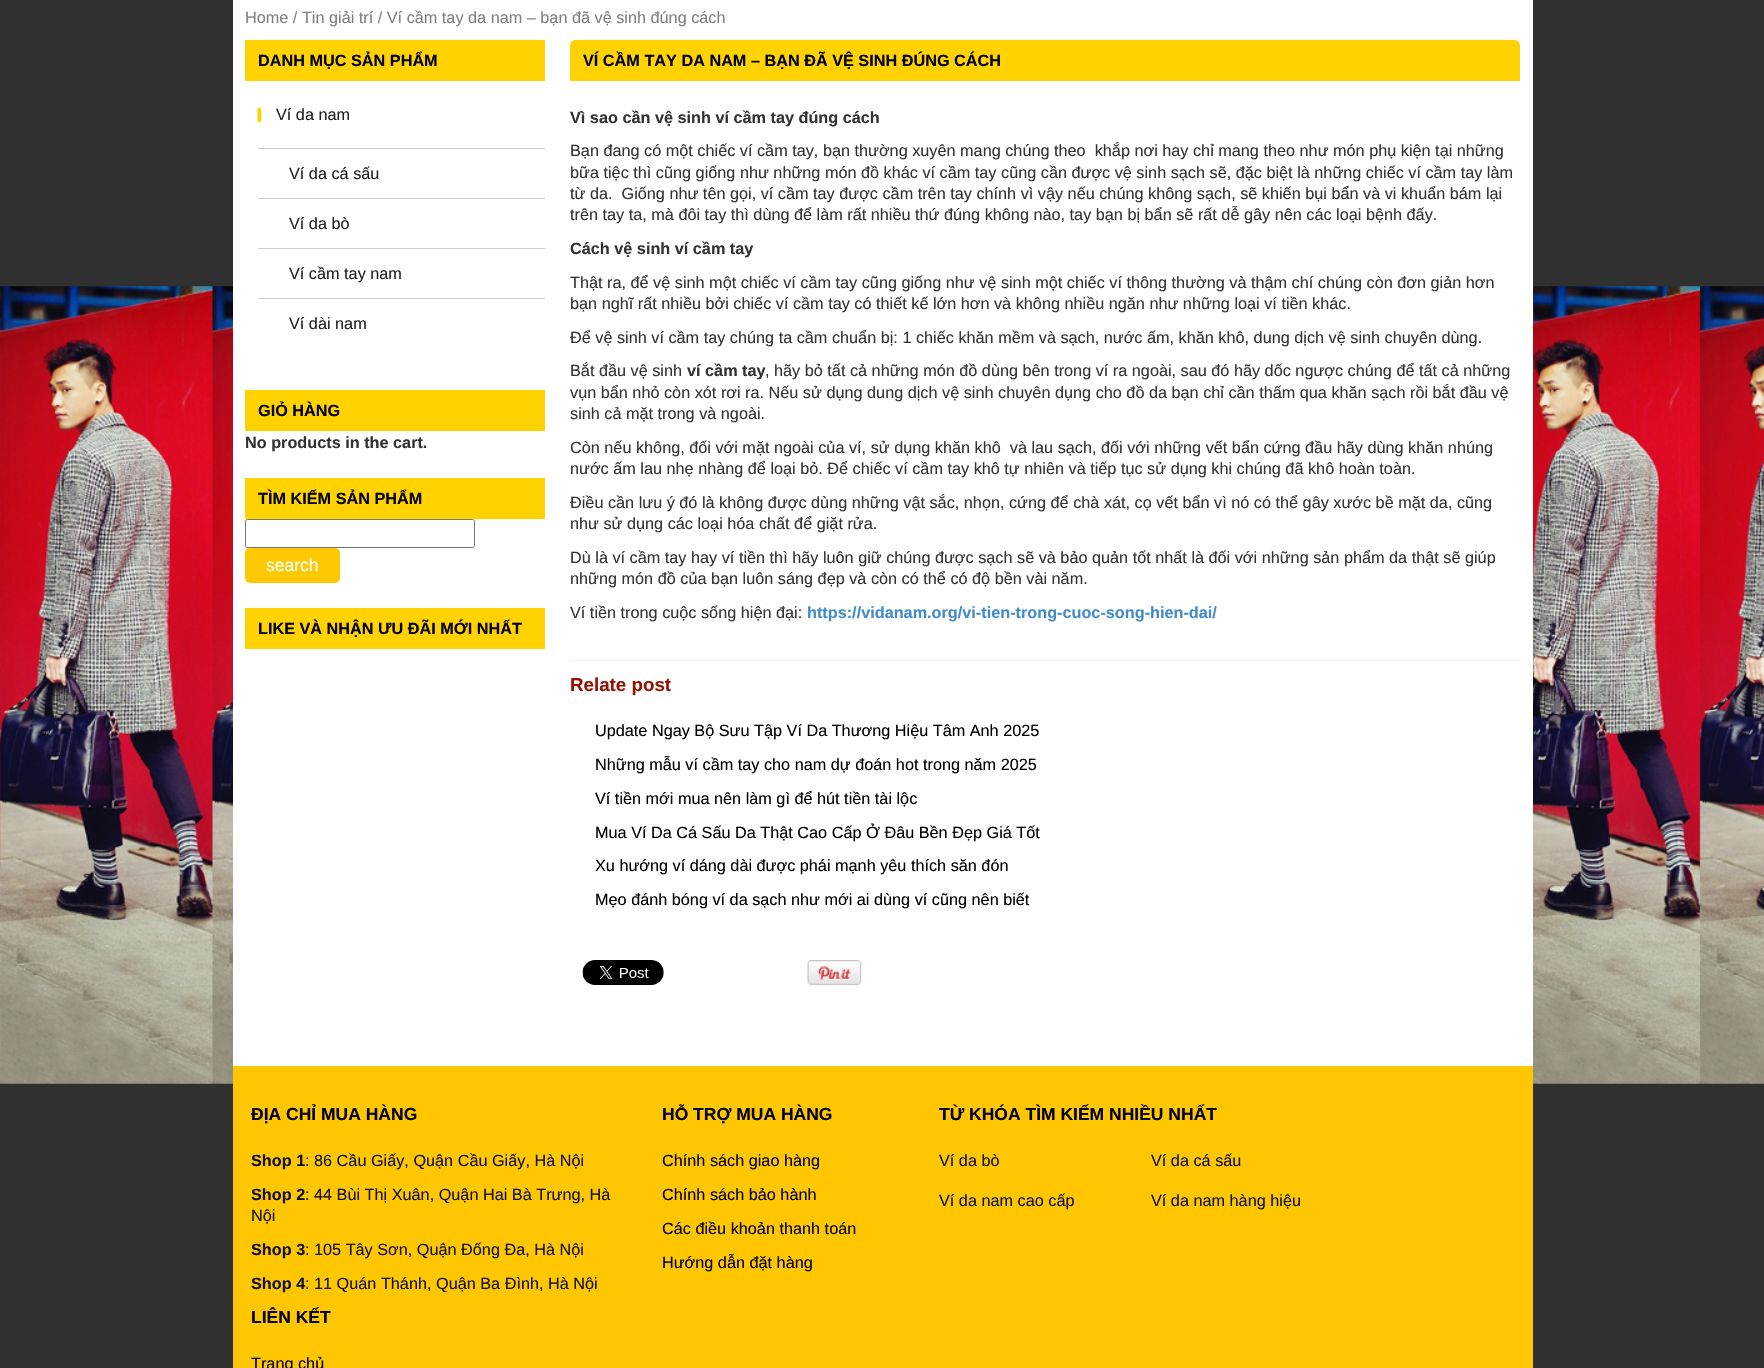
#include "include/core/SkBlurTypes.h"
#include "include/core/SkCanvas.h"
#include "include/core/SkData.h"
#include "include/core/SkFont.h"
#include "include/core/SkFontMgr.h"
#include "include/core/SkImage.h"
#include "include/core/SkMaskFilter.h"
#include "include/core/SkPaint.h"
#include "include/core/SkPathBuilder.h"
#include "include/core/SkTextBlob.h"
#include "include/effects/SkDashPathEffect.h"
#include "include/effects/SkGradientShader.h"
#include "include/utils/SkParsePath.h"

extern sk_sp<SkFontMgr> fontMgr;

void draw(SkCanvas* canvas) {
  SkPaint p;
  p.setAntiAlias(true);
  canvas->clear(SkColorSetRGB(48, 48, 48));
  canvas->drawImageRect(SkImages::DeferredFromEncodedData(SkData::MakeFromFileName("images/1.png")), SkRect::MakeLTRB(0, 286, 1764, 1084), SkSamplingOptions());
  p.setColor(SK_ColorWHITE);
  canvas->drawRect(SkRect::MakeLTRB(233, 0, 1533, 1066), p);
  p.setColor(SkColorSetRGB(255, 210, 0));
  canvas->drawRect(SkRect::MakeLTRB(245, 40, 545, 81), p);
  canvas->drawImageRect(SkImages::DeferredFromEncodedData(SkData::MakeFromFileName("images/2.png")), SkRect::MakeLTRB(257, 107, 262, 123), SkSamplingOptions());
  p.setColor(SkColorSetRGB(204, 204, 204));
  canvas->drawRect(SkRect::MakeLTRB(258, 148, 545, 149), p);
  canvas->drawRect(SkRect::MakeLTRB(258, 198, 545, 199), p);
  canvas->drawRect(SkRect::MakeLTRB(258, 248, 545, 249), p);
  canvas->drawRect(SkRect::MakeLTRB(258, 298, 545, 299), p);
  p.setColor(SkColorSetRGB(255, 210, 0));
  canvas->drawRect(SkRect::MakeLTRB(245, 390, 545, 431), p);
  canvas->drawRect(SkRect::MakeLTRB(245, 478, 545, 519), p);
  p.setStyle(SkPaint::kStroke_Style);
  p.setStrokeWidth(1);
  p.setColor(SkColorSetRGB(118, 118, 118));
  canvas->drawRoundRect(SkRect::MakeLTRB(245.5f, 519.5f, 474.5f, 547.5f), 2, 2, p);
  p.setStyle(SkPaint::kFill_Style);
  p.setColor(SkColorSetRGB(255, 201, 2));
  canvas->drawRoundRect(SkRect::MakeLTRB(245, 548, 340, 583), 5, 5, p);
  p.setColor(SkColorSetRGB(255, 210, 0));
  canvas->drawRect(SkRect::MakeLTRB(245, 608, 545, 649), p);
  canvas->drawPath(SkPathBuilder().moveTo(576, 40).lineTo(1514, 40).cubicTo(1517.5f, 40, 1520, 42.5f, 1520, 46).lineTo(1520, 81).lineTo(570, 81).lineTo(570, 46).cubicTo(570, 42.5f, 572.5f, 40, 576, 40).close().detach(), p);
  p.setColor(SkColorSetRGB(240, 240, 240));
  canvas->drawRect(SkRect::MakeLTRB(570, 660, 1520, 661), p);
  canvas->drawImageRect(SkImages::DeferredFromEncodedData(SkData::MakeFromFileName("images/3.png")), SkRect::MakeLTRB(582, 960, 664, 985), SkSamplingOptions());
  canvas->drawImageRect(SkImages::DeferredFromEncodedData(SkData::MakeFromFileName("images/4.png")), SkRect::MakeLTRB(807, 960, 862, 986), SkSamplingOptions());
  p.setColor(SkColorSetRGB(255, 198, 2));
  canvas->drawRect(SkRect::MakeLTRB(233, 1066, 1533, 1368), p);
  SkFont font1(fontMgr->matchFamilyStyle("Liberation Sans", SkFontStyle::Normal()), 16.25f);
  font1.setSubpixel(true);
  p.setColor(SkColorSetRGB(127, 127, 127));
  canvas->drawString("Home / Tin giải trí / Ví cầm tay da nam – bạn đã vệ sinh đúng cách", 245, 23, font1, p);
  SkFont font2(fontMgr->matchFamilyStyle("Liberation Sans", SkFontStyle::Bold()), 16.25f);
  font2.setSubpixel(true);
  p.setColor(SK_ColorBLACK);
  canvas->drawString("DANH MỤC SẢN PHẨM", 258, 66, font2, p);
  p.setColor(SkColorSetRGB(33, 33, 33));
  canvas->drawString("Ví da nam", 276, 120, font1, p);
  canvas->drawString("Ví da cá sấu", 289, 179, font1, p);
  canvas->drawString("Ví da bò", 289, 229, font1, p);
  canvas->drawString("Ví cầm tay nam", 289, 279, font1, p);
  canvas->drawString("Ví dài nam", 289, 329, font1, p);
  p.setColor(SK_ColorBLACK);
  canvas->drawString("GIỎ HÀNG", 258, 416, font2, p);
  p.setColor(SkColorSetRGB(51, 51, 51));
  canvas->drawString("No products in the cart.", 245, 448, font2, p);
  p.setColor(SK_ColorBLACK);
  canvas->drawString("TÌM KIẾM SẢN PHẨM", 258, 504, font2, p);
  SkFont font3(fontMgr->matchFamilyStyle("Liberation Sans", SkFontStyle::Normal()), 17.5f);
  font3.setSubpixel(true);
  p.setColor(SK_ColorWHITE);
  canvas->drawString("search", 266, 571, font3, p);
  p.setColor(SK_ColorBLACK);
  canvas->drawString("LIKE VÀ NHẬN ƯU ĐÃI MỚI NHẤT", 258, 634, font2, p);
  canvas->drawString("VÍ CẦM TAY DA NAM – BẠN ĐÃ VỆ SINH ĐÚNG CÁCH", 583, 66, font2, p);
  p.setColor(SkColorSetRGB(51, 51, 51));
  canvas->drawString("Vì sao cần vệ sinh ví cầm tay đúng cách", 570, 123, font2, p);
  canvas->drawString("Bạn đang có một chiếc ví cầm tay, bạn thường xuyên mang chúng theo  khắp nơi hay chỉ mang theo như món phụ kiện tại những", 570, 156, font1, p);
  canvas->drawString("bữa tiệc thì cũng giống như những món đồ khác ví cầm tay cũng cần được vệ sinh sạch sẽ, đặc biệt là những chiếc ví cầm tay làm", 570, 178, font1, p);
  canvas->drawString("từ da.  Giống như tên gọi, ví cầm tay được cầm trên tay chính vì vậy nếu chúng không sạch, sẽ khiến bụi bẩn và vi khuẩn bám lại", 570, 199, font1, p);
  canvas->drawString("trên tay ta, mà đôi tay thì dùng để làm rất nhiều thứ đúng không nào, tay bạn bị bẩn sẽ rất dễ gây nên các loại bệnh đấy.", 570, 220, font1, p);
  canvas->drawString("Cách vệ sinh ví cầm tay", 570, 254, font2, p);
  canvas->drawString("Thật ra, để vệ sinh một chiếc ví cầm tay cũng giống như vệ sinh một chiếc ví thông thường và thậm chí chúng còn đơn giản hơn", 570, 288, font1, p);
  canvas->drawString("bạn nghĩ rất nhiều bởi chiếc ví cầm tay có thiết kế lớn hơn và không nhiều ngăn như những loại ví tiền khác.", 570, 309, font1, p);
  canvas->drawString("Để vệ sinh ví cầm tay chúng ta cầm chuẩn bị: 1 chiếc khăn mềm và sạch, nước ấm, khăn khô, dung dịch vệ sinh chuyên dùng.", 570, 343, font1, p);
  canvas->drawString("Bắt đầu vệ sinh", 570, 376, font1, p);
  canvas->drawString("ví cầm tay", 687, 376, font2, p);
  canvas->drawString(", hãy bỏ tất cả những món đồ dùng bên trong ví ra ngoài, sau đó hãy dốc ngược chúng để tất cả những", 765, 376, font1, p);
  canvas->drawString("vụn bẩn nhỏ còn xót rơi ra. Nếu sử dụng dung dịch vệ sinh chuyên dụng cho đồ da bạn chỉ cần thấm qua khăn sạch rồi bắt đầu vệ", 570, 398, font1, p);
  canvas->drawString("sinh cả mặt trong và ngoài.", 570, 419, font1, p);
  canvas->drawString("Còn nếu không, đối với mặt ngoài của ví, sử dụng khăn khô  và lau sạch, đối với những vết bẩn cứng đầu hãy dùng khăn nhúng", 570, 453, font1, p);
  canvas->drawString("nước ấm lau nhẹ nhàng để loại bỏ. Để chiếc ví cầm tay khô tự nhiên và tiếp tục sử dụng khi chúng đã khô hoàn toàn.", 570, 474, font1, p);
  canvas->drawString("Điều cần lưu ý đó là không được dùng những vật sắc, nhọn, cứng để chà xát, cọ vết bẩn vì nó có thể gây xước bề mặt da, cũng", 570, 508, font1, p);
  canvas->drawString("như sử dụng các loại hóa chất để giặt rửa.", 570, 529, font1, p);
  canvas->drawString("Dù là ví cầm tay hay ví tiền thì hãy luôn giữ chúng được sạch sẽ và bảo quản tốt nhất là đối với những sản phẩm da thật sẽ giúp", 570, 563, font1, p);
  canvas->drawString("những món đồ của bạn luôn sáng đẹp và còn có thể có độ bền vài năm.", 570, 584, font1, p);
  canvas->drawString("Ví tiền trong cuộc sống hiện đại:", 570, 618, font1, p);
  p.setColor(SkColorSetRGB(66, 139, 202));
  canvas->drawString("https://vidanam.org/vi-tien-trong-cuoc-song-hien-dai/", 807, 618, font2, p);
  SkFont font4(fontMgr->matchFamilyStyle("Liberation Sans", SkFontStyle::Bold()), 18.75f);
  font4.setSubpixel(true);
  p.setColor(SkColorSetRGB(151, 18, 1));
  canvas->drawString("Relate post", 570, 691, font4, p);
  p.setColor(SK_ColorBLACK);
  canvas->drawString("Update Ngay Bộ Sưu Tập Ví Da Thương Hiệu Tâm Anh 2025", 595, 736, font1, p);
  canvas->drawString("Những mẫu ví cầm tay cho nam dự đoán hot trong năm 2025", 595, 770, font1, p);
  canvas->drawString("Ví tiền mới mua nên làm gì để hút tiền tài lộc", 595, 804, font1, p);
  canvas->drawString("Mua Ví Da Cá Sấu Da Thật Cao Cấp Ở Đâu Bền Đẹp Giá Tốt", 595, 838, font1, p);
  canvas->drawString("Xu hướng ví dáng dài được phái mạnh yêu thích săn đón", 595, 871, font1, p);
  canvas->drawString("Mẹo đánh bóng ví da sạch như mới ai dùng ví cũng nên biết", 595, 905, font1, p);
  SkFont font5(fontMgr->matchFamilyStyle("Liberation Sans", SkFontStyle::Bold()), 17.5f);
  font5.setSubpixel(true);
  canvas->drawString("ĐỊA CHỈ MUA HÀNG", 251, 1120, font5, p);
  p.setColor(SkColorSetRGB(17, 17, 17));
  canvas->drawString("Shop 1", 251, 1166, font2, p);
  canvas->drawString(": 86 Cầu Giấy, Quận Cầu Giấy, Hà Nội", 305, 1166, font1, p);
  canvas->drawString("Shop 2", 251, 1200, font2, p);
  canvas->drawString(": 44 Bùi Thị Xuân, Quận Hai Bà Trưng, Hà", 305, 1200, font1, p);
  canvas->drawString("Nội", 251, 1221, font1, p);
  canvas->drawString("Shop 3", 251, 1255, font2, p);
  canvas->drawString(": 105 Tây Sơn, Quận Đống Đa, Hà Nội", 305, 1255, font1, p);
  canvas->drawString("Shop 4", 251, 1289, font2, p);
  canvas->drawString(": 11 Quán Thánh, Quận Ba Đình, Hà Nội", 305, 1289, font1, p);
  p.setColor(SK_ColorBLACK);
  canvas->drawString("HỖ TRỢ MUA HÀNG", 662, 1120, font5, p);
  canvas->drawString("Chính sách giao hàng", 662, 1166, font1, p);
  canvas->drawString("Chính sách bảo hành", 662, 1200, font1, p);
  canvas->drawString("Các điều khoản thanh toán", 662, 1234, font1, p);
  canvas->drawString("Hướng dẫn đặt hàng", 662, 1268, font1, p);
  canvas->drawString("TỪ KHÓA TÌM KIẾM NHIỀU NHẤT", 939, 1120, font5, p);
  p.setColor(SkColorSetRGB(17, 17, 17));
  canvas->drawString("Ví da bò", 939, 1166, font1, p);
  canvas->drawString("Ví da cá sấu", 1151, 1166, font1, p);
  canvas->drawString("Ví da nam cao cấp", 939, 1206, font1, p);
  canvas->drawString("Ví da nam hàng hiệu", 1151, 1206, font1, p);
  p.setColor(SK_ColorBLACK);
  canvas->drawString("LIÊN KẾT", 251, 1323, font5, p);
  canvas->drawString("Trang chủ", 251, 1369, font1, p);
}
